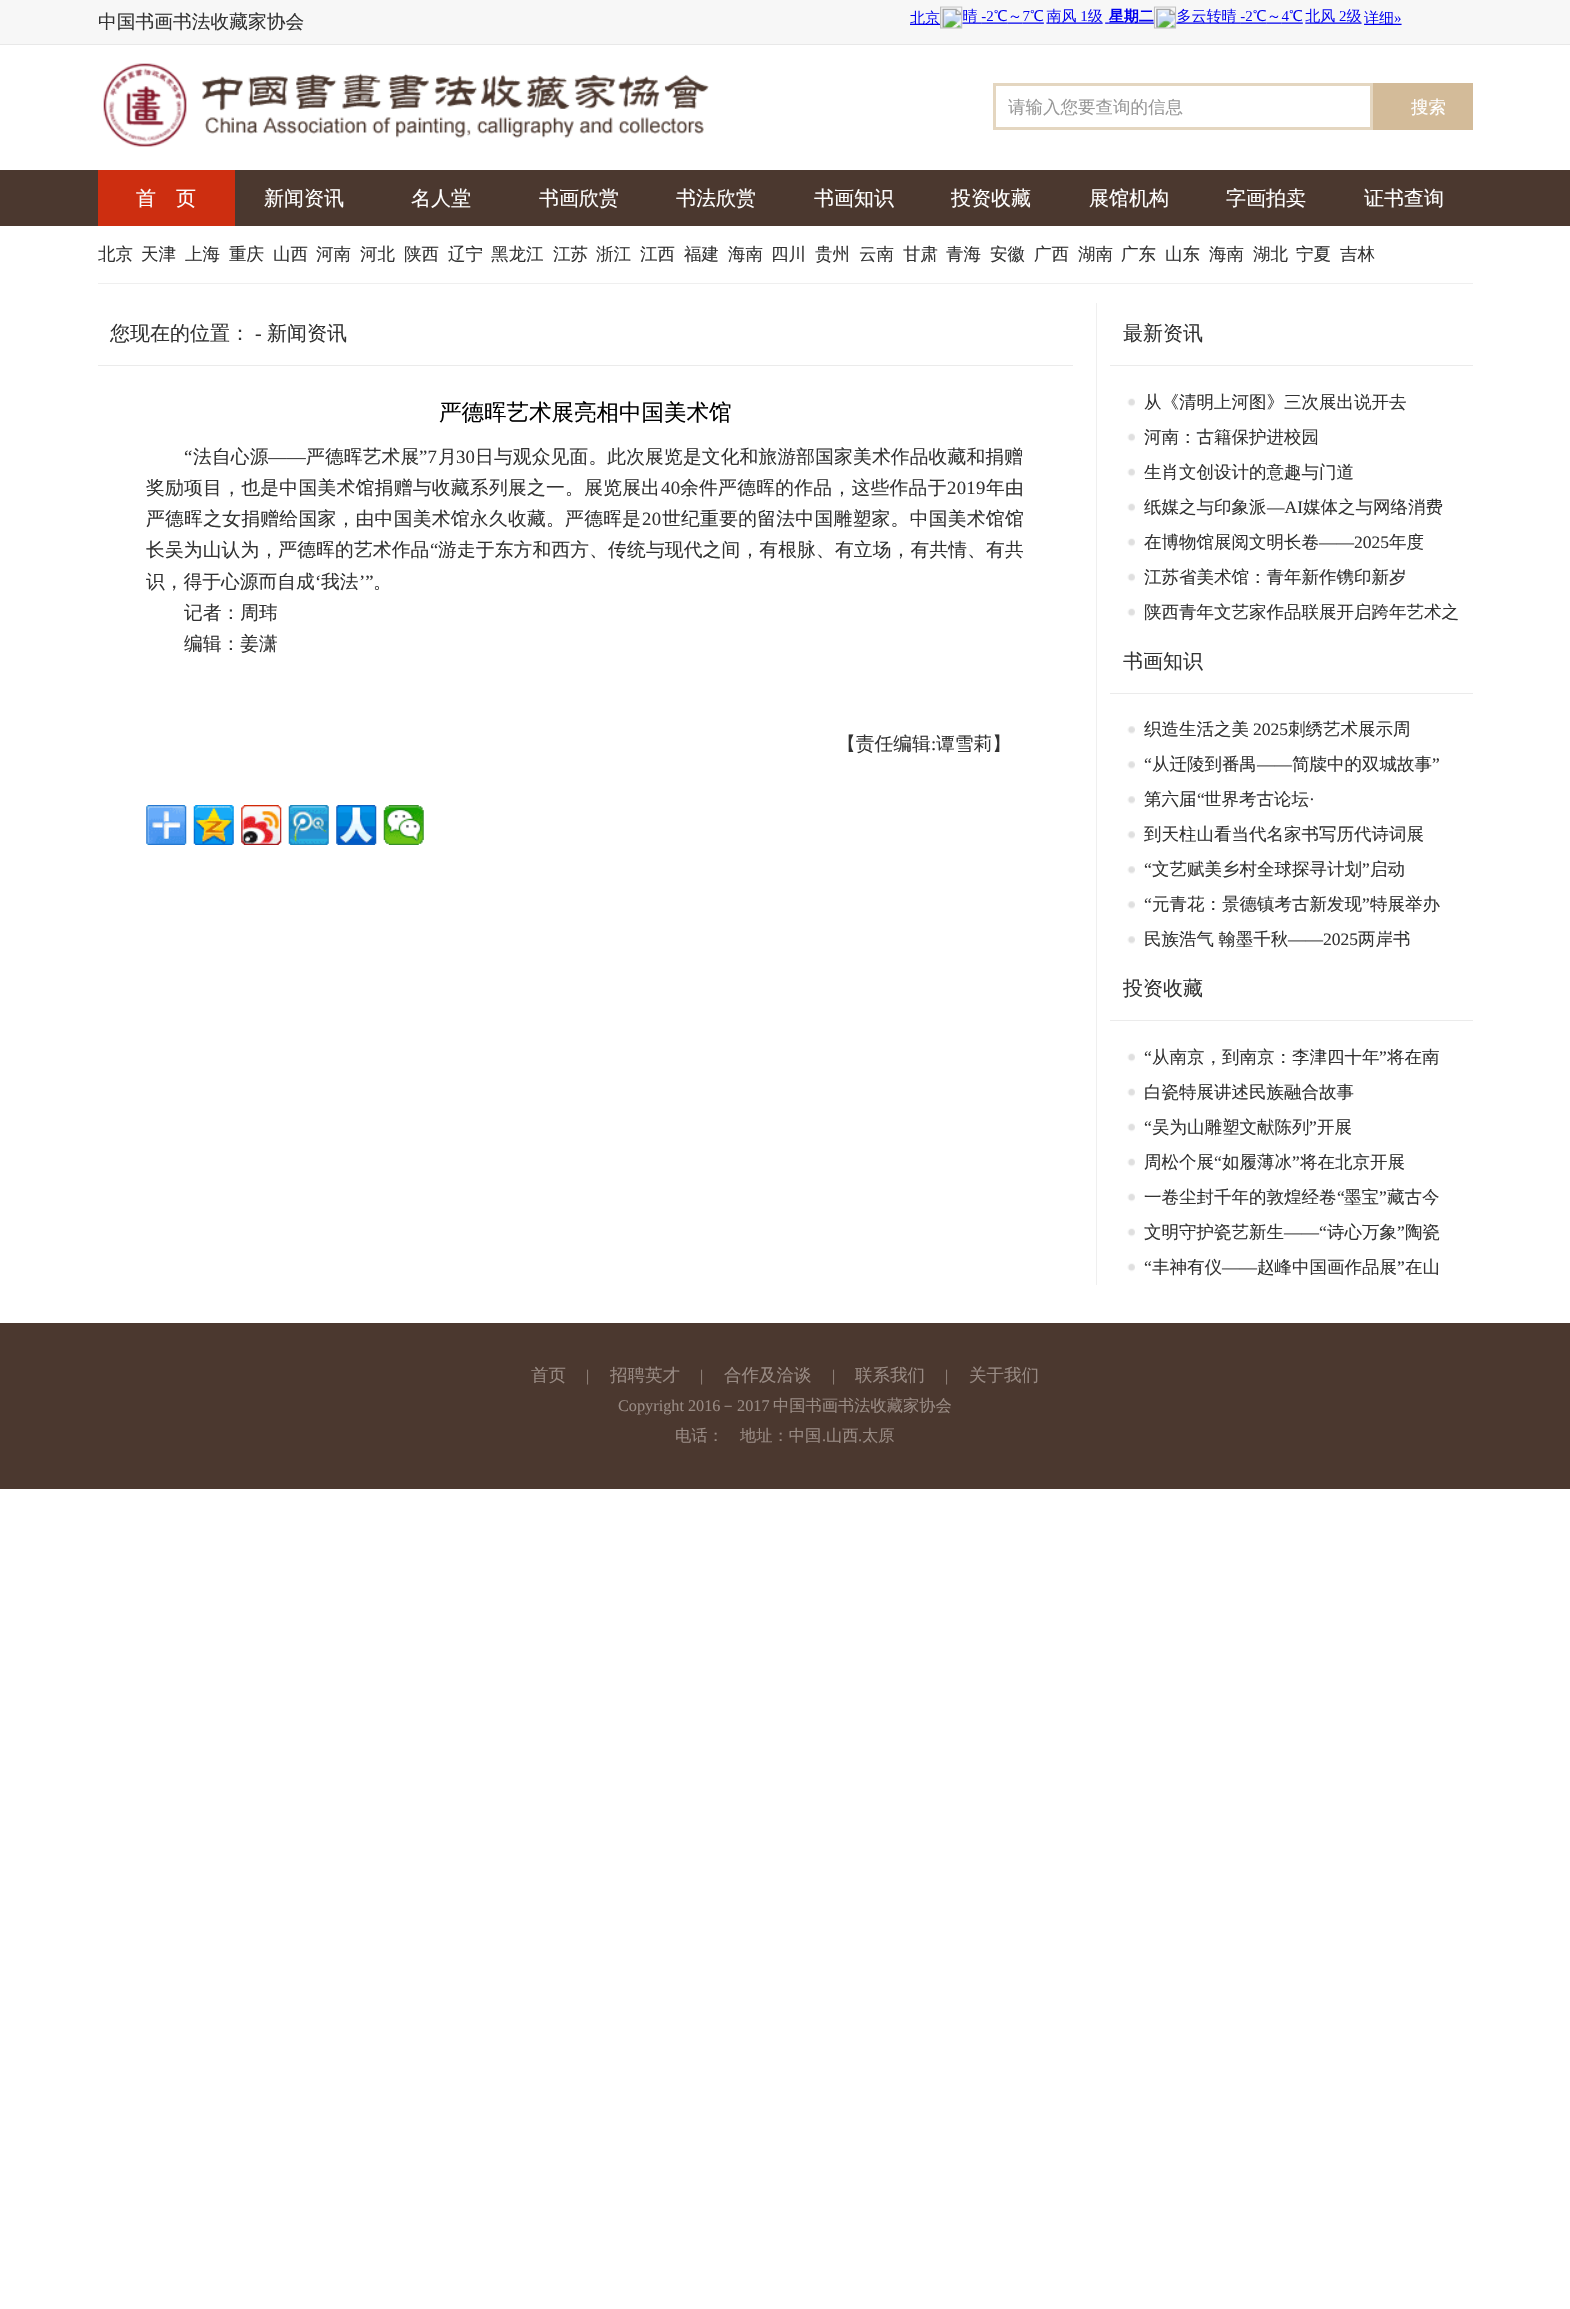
#include "include/core/SkBlurTypes.h"
#include "include/core/SkCanvas.h"
#include "include/core/SkData.h"
#include "include/core/SkFont.h"
#include "include/core/SkFontMgr.h"
#include "include/core/SkImage.h"
#include "include/core/SkMaskFilter.h"
#include "include/core/SkPaint.h"
#include "include/core/SkPathBuilder.h"
#include "include/core/SkTextBlob.h"
#include "include/effects/SkDashPathEffect.h"
#include "include/effects/SkGradientShader.h"
#include "include/utils/SkParsePath.h"

extern sk_sp<SkFontMgr> fontMgr;

void draw(SkCanvas* canvas) {
  SkPaint p;
  p.setAntiAlias(true);
  auto spacedText = [&](const char* s, float x, float y, const SkFont& font, const SkPaint& ink, float letter, float word) {
    std::vector<SkGlyphID> glyphs(font.countText(s, strlen(s), SkTextEncoding::kUTF8));
    std::vector<float> xs(glyphs.size());
    font.textToGlyphs(s, strlen(s), SkTextEncoding::kUTF8, glyphs);
    font.getXPos(glyphs, xs, x);
    float extra = 0;
    for (size_t i = 0; i < glyphs.size(); i++) {
      xs[i] += extra;
      extra += letter + word * (glyphs[i] == font.unicharToGlyph(' '));
    }
    canvas->drawTextBlob(SkTextBlob::MakeFromPosHGlyphs(glyphs, xs, y, font), 0, 0, ink);
  };
  canvas->clear(SK_ColorWHITE);
  p.setColor(SkColorSetRGB(247, 247, 247));
  canvas->drawRect(SkRect::MakeLTRB(0, 0, 1570, 44), p);
  p.setColor(SkColorSetRGB(232, 232, 232));
  canvas->drawRect(SkRect::MakeLTRB(0, 44, 1570, 45), p);
  canvas->drawImageRect(SkImages::DeferredFromEncodedData(SkData::MakeFromFileName("images/1.png")), SkRect::MakeLTRB(910, 6, 1402, 29), SkSamplingOptions());
  canvas->drawImageRect(SkImages::DeferredFromEncodedData(SkData::MakeFromFileName("images/2.png")), SkRect::MakeLTRB(103, 63, 709, 147), SkSamplingOptions());
  p.setStyle(SkPaint::kStroke_Style);
  p.setStrokeWidth(3);
  p.setColor(SkColorSetRGB(228, 214, 192));
  canvas->drawRect(SkRect::MakeLTRB(994.5f, 84.5f, 1371.5f, 128.5f), p);
  p.setStyle(SkPaint::kFill_Style);
  p.setColor(SkColorSetRGB(211, 187, 153));
  canvas->drawRect(SkRect::MakeLTRB(1373, 83, 1473, 130), p);
  p.setColor(SkColorSetRGB(75, 56, 47));
  canvas->drawRect(SkRect::MakeLTRB(0, 170, 1570, 226), p);
  p.setColor(SkColorSetRGB(205, 46, 16));
  canvas->drawRect(SkRect::MakeLTRB(98, 170, 235, 226), p);
  p.setColor(SkColorSetRGB(239, 239, 239));
  canvas->drawRect(SkRect::MakeLTRB(98, 283, 1473, 284), p);
  p.setColor(SkColorSetRGB(235, 235, 235));
  canvas->drawRect(SkRect::MakeLTRB(98, 365, 1073, 366), p);
  canvas->drawImageRect(SkImages::DeferredFromEncodedData(SkData::MakeFromFileName("images/3.png")), SkRect::MakeLTRB(146, 805, 187, 845), SkSamplingOptions());
  canvas->drawImageRect(SkImages::DeferredFromEncodedData(SkData::MakeFromFileName("images/4.png")), SkRect::MakeLTRB(193, 805, 234, 845), SkSamplingOptions());
  canvas->drawImageRect(SkImages::DeferredFromEncodedData(SkData::MakeFromFileName("images/5.png")), SkRect::MakeLTRB(241, 805, 282, 845), SkSamplingOptions());
  canvas->drawImageRect(SkImages::DeferredFromEncodedData(SkData::MakeFromFileName("images/6.png")), SkRect::MakeLTRB(288, 805, 329, 845), SkSamplingOptions());
  canvas->drawImageRect(SkImages::DeferredFromEncodedData(SkData::MakeFromFileName("images/7.png")), SkRect::MakeLTRB(336, 805, 377, 845), SkSamplingOptions());
  canvas->drawImageRect(SkImages::DeferredFromEncodedData(SkData::MakeFromFileName("images/8.png")), SkRect::MakeLTRB(383, 805, 424, 845), SkSamplingOptions());
  p.setColor(SkColorSetRGB(239, 239, 239));
  canvas->drawRect(SkRect::MakeLTRB(1096, 303, 1097, 1285), p);
  p.setColor(SkColorSetRGB(235, 235, 235));
  canvas->drawRect(SkRect::MakeLTRB(1110, 365, 1473, 366), p);
  canvas->drawImageRect(SkImages::DeferredFromEncodedData(SkData::MakeFromFileName("images/9.png")), SkRect::MakeLTRB(1127, 398, 1135, 407), SkSamplingOptions());
  canvas->drawImageRect(SkImages::DeferredFromEncodedData(SkData::MakeFromFileName("images/9.png")), SkRect::MakeLTRB(1127, 433, 1135, 442), SkSamplingOptions());
  canvas->drawImageRect(SkImages::DeferredFromEncodedData(SkData::MakeFromFileName("images/9.png")), SkRect::MakeLTRB(1127, 468, 1135, 477), SkSamplingOptions());
  canvas->drawImageRect(SkImages::DeferredFromEncodedData(SkData::MakeFromFileName("images/9.png")), SkRect::MakeLTRB(1127, 503, 1135, 512), SkSamplingOptions());
  canvas->drawImageRect(SkImages::DeferredFromEncodedData(SkData::MakeFromFileName("images/9.png")), SkRect::MakeLTRB(1127, 538, 1135, 547), SkSamplingOptions());
  canvas->drawImageRect(SkImages::DeferredFromEncodedData(SkData::MakeFromFileName("images/9.png")), SkRect::MakeLTRB(1127, 573, 1135, 582), SkSamplingOptions());
  canvas->drawImageRect(SkImages::DeferredFromEncodedData(SkData::MakeFromFileName("images/9.png")), SkRect::MakeLTRB(1127, 608, 1135, 617), SkSamplingOptions());
  canvas->drawRect(SkRect::MakeLTRB(1110, 693, 1473, 694), p);
  canvas->drawImageRect(SkImages::DeferredFromEncodedData(SkData::MakeFromFileName("images/10.png")), SkRect::MakeLTRB(1127, 726, 1135, 734), SkSamplingOptions());
  canvas->drawImageRect(SkImages::DeferredFromEncodedData(SkData::MakeFromFileName("images/10.png")), SkRect::MakeLTRB(1127, 761, 1135, 769), SkSamplingOptions());
  canvas->drawImageRect(SkImages::DeferredFromEncodedData(SkData::MakeFromFileName("images/10.png")), SkRect::MakeLTRB(1127, 796, 1135, 804), SkSamplingOptions());
  canvas->drawImageRect(SkImages::DeferredFromEncodedData(SkData::MakeFromFileName("images/10.png")), SkRect::MakeLTRB(1127, 831, 1135, 839), SkSamplingOptions());
  canvas->drawImageRect(SkImages::DeferredFromEncodedData(SkData::MakeFromFileName("images/10.png")), SkRect::MakeLTRB(1127, 866, 1135, 874), SkSamplingOptions());
  canvas->drawImageRect(SkImages::DeferredFromEncodedData(SkData::MakeFromFileName("images/10.png")), SkRect::MakeLTRB(1127, 901, 1135, 909), SkSamplingOptions());
  canvas->drawImageRect(SkImages::DeferredFromEncodedData(SkData::MakeFromFileName("images/10.png")), SkRect::MakeLTRB(1127, 936, 1135, 944), SkSamplingOptions());
  canvas->drawRect(SkRect::MakeLTRB(1110, 1020, 1473, 1021), p);
  canvas->drawImageRect(SkImages::DeferredFromEncodedData(SkData::MakeFromFileName("images/9.png")), SkRect::MakeLTRB(1127, 1053, 1135, 1062), SkSamplingOptions());
  canvas->drawImageRect(SkImages::DeferredFromEncodedData(SkData::MakeFromFileName("images/9.png")), SkRect::MakeLTRB(1127, 1088, 1135, 1097), SkSamplingOptions());
  canvas->drawImageRect(SkImages::DeferredFromEncodedData(SkData::MakeFromFileName("images/9.png")), SkRect::MakeLTRB(1127, 1123, 1135, 1132), SkSamplingOptions());
  canvas->drawImageRect(SkImages::DeferredFromEncodedData(SkData::MakeFromFileName("images/9.png")), SkRect::MakeLTRB(1127, 1158, 1135, 1167), SkSamplingOptions());
  canvas->drawImageRect(SkImages::DeferredFromEncodedData(SkData::MakeFromFileName("images/9.png")), SkRect::MakeLTRB(1127, 1193, 1135, 1202), SkSamplingOptions());
  canvas->drawImageRect(SkImages::DeferredFromEncodedData(SkData::MakeFromFileName("images/9.png")), SkRect::MakeLTRB(1127, 1228, 1135, 1237), SkSamplingOptions());
  canvas->drawImageRect(SkImages::DeferredFromEncodedData(SkData::MakeFromFileName("images/9.png")), SkRect::MakeLTRB(1127, 1263, 1135, 1272), SkSamplingOptions());
  p.setColor(SkColorSetRGB(75, 56, 47));
  canvas->drawRect(SkRect::MakeLTRB(0, 1323, 1570, 1489), p);
  SkFont font1(fontMgr->matchFamilyStyle("WenQuanYi Zen Hei", SkFontStyle(500, SkFontStyle::kNormal_Width, SkFontStyle::kUpright_Slant)), 18.75f);
  font1.setSubpixel(true);
  p.setColor(SkColorSetRGB(51, 51, 51));
  canvas->drawString("中国书画书法收藏家协会", 98, 28, font1, p);
  SkFont font2(fontMgr->matchFamilyStyle("WenQuanYi Zen Hei", SkFontStyle(500, SkFontStyle::kNormal_Width, SkFontStyle::kUpright_Slant)), 17.5f);
  font2.setSubpixel(true);
  p.setColor(SkColorSetRGB(153, 153, 153));
  canvas->drawString("请输入您要查询的信息", 1008, 113, font2, p);
  p.setColor(SK_ColorWHITE);
  canvas->drawString("搜索", 1411, 113, font2, p);
  SkFont font3(fontMgr->matchFamilyStyle("WenQuanYi Zen Hei", SkFontStyle(500, SkFontStyle::kNormal_Width, SkFontStyle::kUpright_Slant)), 20);
  font3.setSubpixel(true);
  canvas->drawString("首　页", 136, 205, font3, p);
  canvas->drawString("新闻资讯", 264, 205, font3, p);
  canvas->drawString("名人堂", 411, 205, font3, p);
  canvas->drawString("书画欣赏", 539, 205, font3, p);
  canvas->drawString("书法欣赏", 676, 205, font3, p);
  canvas->drawString("书画知识", 814, 205, font3, p);
  canvas->drawString("投资收藏", 951, 205, font3, p);
  canvas->drawString("展馆机构", 1089, 205, font3, p);
  canvas->drawString("字画拍卖", 1226, 205, font3, p);
  canvas->drawString("证书查询", 1364, 205, font3, p);
  p.setColor(SkColorSetRGB(51, 51, 51));
  canvas->drawString("北京", 98, 260, font2, p);
  canvas->drawString("天津", 141, 260, font2, p);
  canvas->drawString("上海", 185, 260, font2, p);
  canvas->drawString("重庆", 229, 260, font2, p);
  canvas->drawString("山西", 273, 260, font2, p);
  canvas->drawString("河南", 316, 260, font2, p);
  canvas->drawString("河北", 360, 260, font2, p);
  canvas->drawString("陕西", 404, 260, font2, p);
  canvas->drawString("辽宁", 448, 260, font2, p);
  canvas->drawString("黑龙江", 491, 260, font2, p);
  canvas->drawString("江苏", 553, 260, font2, p);
  canvas->drawString("浙江", 596, 260, font2, p);
  canvas->drawString("江西", 640, 260, font2, p);
  canvas->drawString("福建", 684, 260, font2, p);
  canvas->drawString("海南", 728, 260, font2, p);
  canvas->drawString("四川", 771, 260, font2, p);
  canvas->drawString("贵州", 815, 260, font2, p);
  canvas->drawString("云南", 859, 260, font2, p);
  canvas->drawString("甘肃", 903, 260, font2, p);
  canvas->drawString("青海", 946, 260, font2, p);
  canvas->drawString("安徽", 990, 260, font2, p);
  canvas->drawString("广西", 1034, 260, font2, p);
  canvas->drawString("湖南", 1078, 260, font2, p);
  canvas->drawString("广东", 1121, 260, font2, p);
  canvas->drawString("山东", 1165, 260, font2, p);
  canvas->drawString("海南", 1209, 260, font2, p);
  canvas->drawString("湖北", 1253, 260, font2, p);
  canvas->drawString("宁夏", 1296, 260, font2, p);
  canvas->drawString("吉林", 1340, 260, font2, p);
  canvas->drawString("您现在的位置：", 110, 340, font3, p);
  SkFont font4(fontMgr->matchFamilyStyle("Liberation Serif", SkFontStyle::Normal()), 20);
  font4.setSubpixel(true);
  canvas->drawString("-", 255, 340, font4, p);
  canvas->drawString("新闻资讯", 267, 340, font3, p);
  SkFont font5(fontMgr->matchFamilyStyle("WenQuanYi Zen Hei", SkFontStyle(500, SkFontStyle::kNormal_Width, SkFontStyle::kUpright_Slant)), 22.5f);
  font5.setSubpixel(true);
  p.setColor(SK_ColorBLACK);
  canvas->drawString("严德晖艺术展亮相中国美术馆", 439, 420, font5, p);
  SkFont font6(fontMgr->matchFamilyStyle("Liberation Serif", SkFontStyle::Normal()), 18.75f);
  font6.setSubpixel(true);
  p.setColor(SkColorSetRGB(51, 51, 51));
  spacedText("“", 184, 463, font6, p, 0.15f, 0);
  spacedText("法自心源", 193, 463, font1, p, 0.15f, 0);
  spacedText("——", 268, 463, font6, p, 0.15f, 0);
  spacedText("严德晖艺术展", 306, 463, font1, p, 0.15f, 0);
  spacedText("”7", 419, 463, font6, p, 0.15f, 0);
  spacedText("月", 438, 463, font1, p, 0.15f, 0);
  spacedText("30", 456, 463, font6, p, 0.15f, 0);
  spacedText("日与观众见面。此次展览是文化和旅游部国家美术作品收藏和捐赠", 475, 463, font1, p, 0.15f, 0);
  spacedText("奖励项目，也是中国美术馆捐赠与收藏系列展之一。展览展出", 146, 494, font1, p, 0.3f, 0);
  spacedText("40", 661, 494, font6, p, 0.3f, 0);
  spacedText("余件严德晖的作品，这些作品于", 680, 494, font1, p, 0.3f, 0);
  spacedText("2019", 947, 494, font6, p, 0.3f, 0);
  spacedText("年由", 986, 494, font1, p, 0.3f, 0);
  spacedText("严德晖之女捐赠给国家，由中国美术馆永久收藏。严德晖是", 146, 525, font1, p, 0.3f, 0);
  spacedText("20", 642, 525, font6, p, 0.3f, 0);
  spacedText("世纪重要的留法中国雕塑家。中国美术馆馆", 662, 525, font1, p, 0.3f, 0);
  spacedText("长吴为山认为，严德晖的艺术作品", 146, 556, font1, p, 0.15f, 0);
  spacedText("“", 430, 556, font6, p, 0.15f, 0);
  spacedText("游走于东方和西方、传统与现代之间，有根脉、有立场，有共情、有共", 438, 556, font1, p, 0.15f, 0);
  canvas->drawString("识，得于心源而自成", 146, 588, font1, p);
  canvas->drawString("‘", 315, 588, font6, p);
  canvas->drawString("我法", 321, 588, font1, p);
  canvas->drawString("’”", 359, 588, font6, p);
  canvas->drawString("。", 373, 588, font1, p);
  canvas->drawString("记者：周玮", 184, 619, font1, p);
  canvas->drawString("编辑：姜潇", 184, 650, font1, p);
  canvas->drawString("【责任编辑", 837, 750, font1, p);
  canvas->drawString(":", 931, 750, font6, p);
  canvas->drawString("谭雪莉】", 936, 750, font1, p);
  canvas->drawString("最新资讯", 1123, 340, font3, p);
  canvas->drawString("从《清明上河图》三次展出说开去", 1144, 408, font2, p);
  canvas->drawString("河南：古籍保护进校园", 1144, 443, font2, p);
  canvas->drawString("生肖文创设计的意趣与门道", 1144, 478, font2, p);
  canvas->drawString("纸媒之与印象派", 1144, 513, font2, p);
  SkFont font7(fontMgr->matchFamilyStyle("Liberation Serif", SkFontStyle::Normal()), 17.5f);
  font7.setSubpixel(true);
  canvas->drawString("—AI", 1267, 513, font7, p);
  canvas->drawString("媒体之与网络消费", 1303, 513, font2, p);
  canvas->drawString("在博物馆展阅文明长卷", 1144, 548, font2, p);
  canvas->drawString("——2025", 1319, 548, font7, p);
  canvas->drawString("年度", 1389, 548, font2, p);
  canvas->drawString("江苏省美术馆：青年新作镌印新岁", 1144, 583, font2, p);
  canvas->drawString("陕西青年文艺家作品联展开启跨年艺术之", 1144, 618, font2, p);
  canvas->drawString("书画知识", 1123, 668, font3, p);
  canvas->drawString("织造生活之美", 1144, 735, font2, p);
  canvas->drawString("2025", 1253, 735, font7, p);
  canvas->drawString("刺绣艺术展示周", 1288, 735, font2, p);
  canvas->drawString("“", 1144, 770, font7, p);
  canvas->drawString("从迁陵到番禺", 1152, 770, font2, p);
  canvas->drawString("简牍中的双城故事", 1292, 770, font2, p);
  canvas->drawString("”", 1432, 770, font7, p);
  canvas->drawString("——", 1257, 770, font7, p);
  canvas->drawString("第六届", 1144, 805, font2, p);
  canvas->drawString("“", 1197, 805, font7, p);
  canvas->drawString("世界考古论坛", 1204, 805, font2, p);
  canvas->drawString("·", 1309, 805, font7, p);
  canvas->drawString("到天柱山看当代名家书写历代诗词展", 1144, 840, font2, p);
  canvas->drawString("“", 1144, 875, font7, p);
  canvas->drawString("文艺赋美乡村全球探寻计划", 1152, 875, font2, p);
  canvas->drawString("”", 1362, 875, font7, p);
  canvas->drawString("启动", 1370, 875, font2, p);
  canvas->drawString("“", 1144, 910, font7, p);
  canvas->drawString("元青花：景德镇考古新发现", 1152, 910, font2, p);
  canvas->drawString("”", 1362, 910, font7, p);
  canvas->drawString("特展举办", 1370, 910, font2, p);
  spacedText("民族浩气 翰墨千秋", 1144, 945, font2, p, 0, -1);
  canvas->drawString("——2025", 1288, 945, font7, p);
  canvas->drawString("两岸书", 1358, 945, font2, p);
  canvas->drawString("投资收藏", 1123, 995, font3, p);
  canvas->drawString("“", 1144, 1063, font7, p);
  canvas->drawString("从南京，到南京：李津四十年", 1152, 1063, font2, p);
  canvas->drawString("”", 1379, 1063, font7, p);
  canvas->drawString("将在南", 1387, 1063, font2, p);
  canvas->drawString("白瓷特展讲述民族融合故事", 1144, 1098, font2, p);
  canvas->drawString("“", 1144, 1133, font7, p);
  canvas->drawString("吴为山雕塑文献陈列", 1152, 1133, font2, p);
  canvas->drawString("”", 1309, 1133, font7, p);
  canvas->drawString("开展", 1317, 1133, font2, p);
  canvas->drawString("周松个展", 1144, 1168, font2, p);
  canvas->drawString("“", 1214, 1168, font7, p);
  canvas->drawString("如履薄冰", 1222, 1168, font2, p);
  canvas->drawString("”", 1292, 1168, font7, p);
  canvas->drawString("将在北京开展", 1300, 1168, font2, p);
  canvas->drawString("一卷尘封千年的敦煌经卷", 1144, 1203, font2, p);
  canvas->drawString("“", 1337, 1203, font7, p);
  canvas->drawString("墨宝", 1344, 1203, font2, p);
  canvas->drawString("”", 1379, 1203, font7, p);
  canvas->drawString("藏古今", 1387, 1203, font2, p);
  canvas->drawString("文明守护瓷艺新生", 1144, 1238, font2, p);
  canvas->drawString("——“", 1284, 1238, font7, p);
  canvas->drawString("诗心万象", 1327, 1238, font2, p);
  canvas->drawString("”", 1397, 1238, font7, p);
  canvas->drawString("陶瓷", 1405, 1238, font2, p);
  canvas->drawString("“", 1144, 1273, font7, p);
  canvas->drawString("丰神有仪", 1152, 1273, font2, p);
  canvas->drawString("赵峰中国画作品展", 1257, 1273, font2, p);
  canvas->drawString("”", 1397, 1273, font7, p);
  canvas->drawString("在山", 1405, 1273, font2, p);
  canvas->drawString("——", 1222, 1273, font7, p);
  p.setColor(SkColorSetRGB(152, 138, 131));
  canvas->drawString("首页", 531, 1381, font2, p);
  SkFont font8(fontMgr->matchFamilyStyle("Liberation Serif", SkFontStyle::Normal()), 16.25f);
  font8.setSubpixel(true);
  canvas->drawString("|", 586, 1381, font8, p);
  canvas->drawString("招聘英才", 610, 1381, font2, p);
  canvas->drawString("|", 700, 1381, font8, p);
  canvas->drawString("合作及洽谈", 724, 1381, font2, p);
  canvas->drawString("|", 832, 1381, font8, p);
  canvas->drawString("联系我们", 855, 1381, font2, p);
  canvas->drawString("|", 945, 1381, font8, p);
  canvas->drawString("关于我们", 969, 1381, font2, p);
  canvas->drawString("Copyright 2016", 618, 1411, font8, p);
  SkFont font9(fontMgr->matchFamilyStyle("WenQuanYi Zen Hei", SkFontStyle(500, SkFontStyle::kNormal_Width, SkFontStyle::kUpright_Slant)), 16.25f);
  font9.setSubpixel(true);
  canvas->drawString("－", 720, 1411, font9, p);
  canvas->drawString("2017", 737, 1411, font8, p);
  canvas->drawString("中国书画书法收藏家协会", 773, 1411, font9, p);
  canvas->drawString("电话：　地址：中国", 675, 1441, font9, p);
  canvas->drawString(".", 822, 1441, font8, p);
  canvas->drawString("山西", 826, 1441, font9, p);
  canvas->drawString(".", 858, 1441, font8, p);
  canvas->drawString("太原", 862, 1441, font9, p);
}
